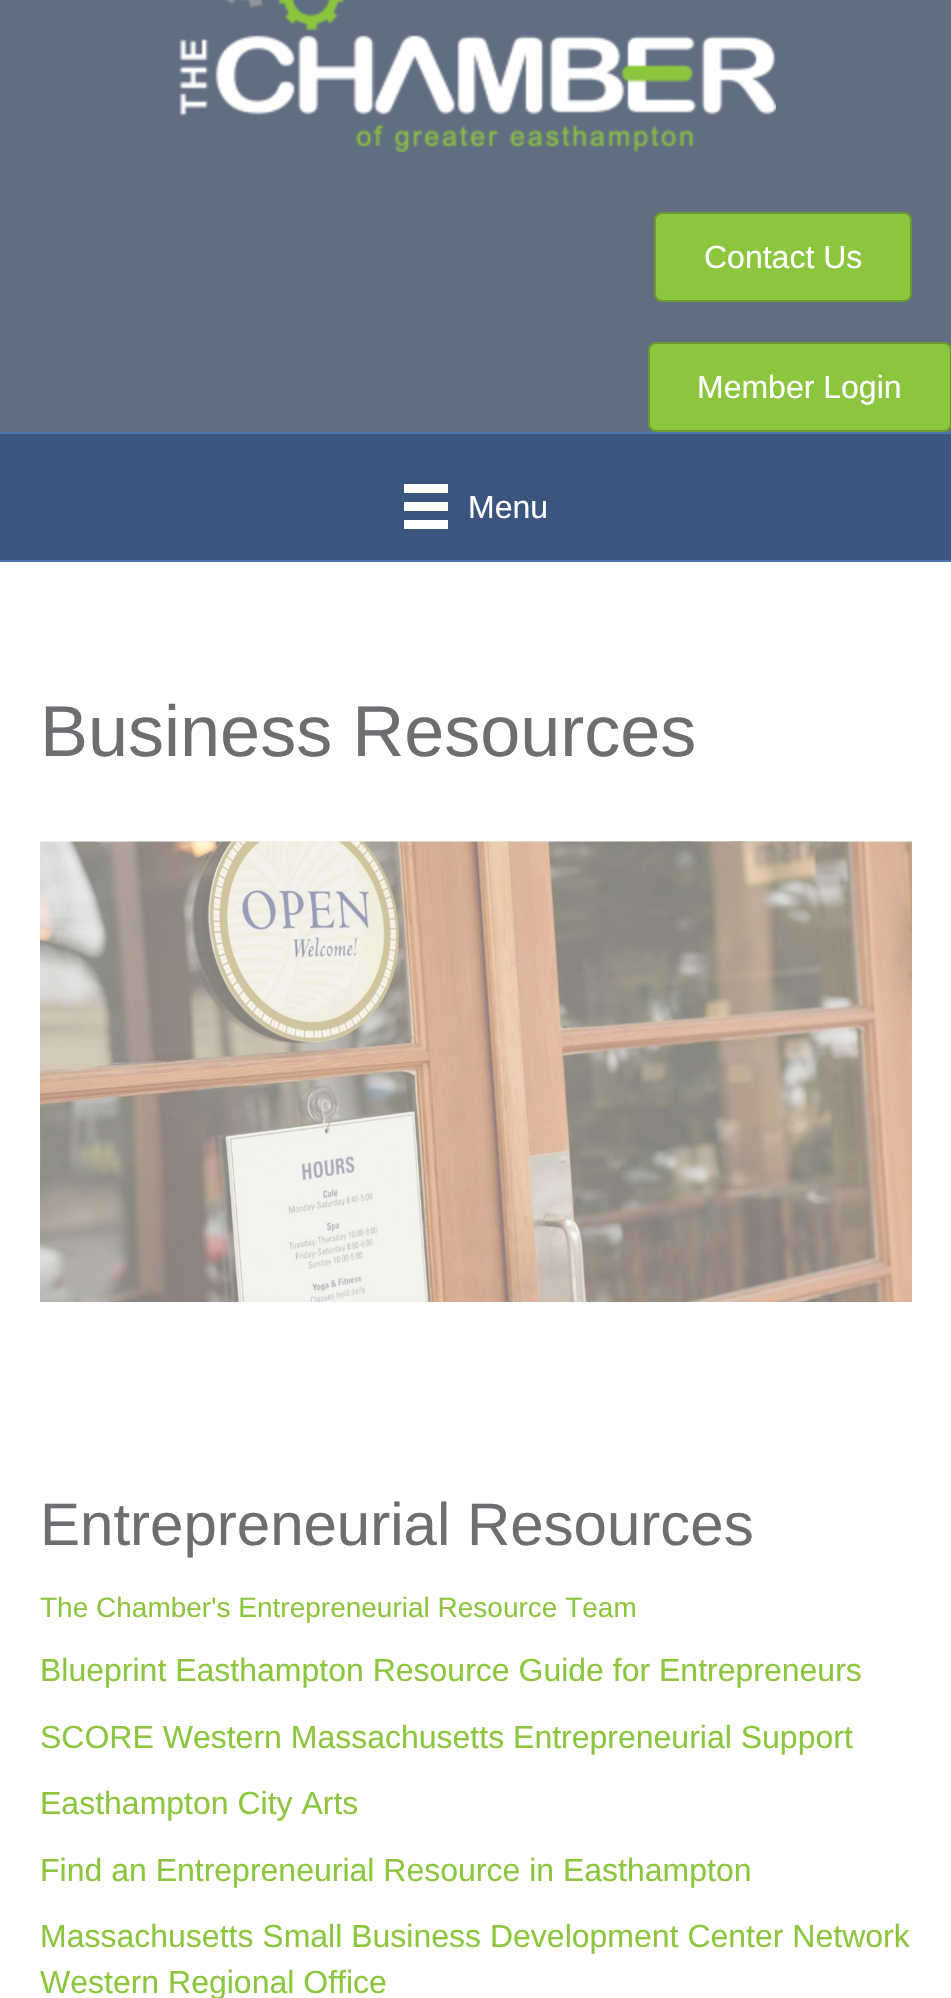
#include "include/core/SkBlurTypes.h"
#include "include/core/SkCanvas.h"
#include "include/core/SkData.h"
#include "include/core/SkFont.h"
#include "include/core/SkFontMgr.h"
#include "include/core/SkImage.h"
#include "include/core/SkMaskFilter.h"
#include "include/core/SkPaint.h"
#include "include/core/SkPathBuilder.h"
#include "include/core/SkTextBlob.h"
#include "include/effects/SkDashPathEffect.h"
#include "include/effects/SkGradientShader.h"
#include "include/utils/SkParsePath.h"

extern sk_sp<SkFontMgr> fontMgr;

void draw(SkCanvas* canvas) {
  SkPaint p;
  p.setAntiAlias(true);
  canvas->clear(SK_ColorWHITE);
  p.setColor(SkColorSetRGB(97, 110, 130));
  canvas->drawRect(SkRect::MakeLTRB(0, 0, 951, 432), p);
  canvas->drawImageRect(SkImages::DeferredFromEncodedData(SkData::MakeFromFileName("images/1.png")), SkRect::MakeLTRB(179, 0, 776, 152), SkSamplingOptions());
  p.setColor(SkColorSetRGB(140, 198, 63));
  canvas->drawRoundRect(SkRect::MakeLTRB(655, 213, 911, 301), 7, 7, p);
  p.setStyle(SkPaint::kStroke_Style);
  p.setStrokeWidth(2);
  p.setColor(SkColorSetRGB(108, 154, 46));
  canvas->drawRoundRect(SkRect::MakeLTRB(655, 213, 911, 301), 7, 7, p);
  p.setStyle(SkPaint::kFill_Style);
  p.setColor(SkColorSetRGB(140, 198, 63));
  canvas->drawRoundRect(SkRect::MakeLTRB(649, 343, 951, 431), 7, 7, p);
  p.setStyle(SkPaint::kStroke_Style);
  p.setColor(SkColorSetRGB(108, 154, 46));
  canvas->drawRoundRect(SkRect::MakeLTRB(649, 343, 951, 431), 7, 7, p);
  p.setStyle(SkPaint::kFill_Style);
  p.setColor(SkColorSetRGB(58, 86, 127));
  canvas->drawRect(SkRect::MakeLTRB(0, 434, 951, 560), p);
  p.setColor(SkColorSetRGB(79, 117, 173));
  canvas->drawRect(SkRect::MakeLTRB(0, 432, 951, 434), p);
  canvas->drawRect(SkRect::MakeLTRB(0, 560, 951, 562), p);
  p.setColor(SK_ColorWHITE);
  canvas->drawRect(SkRect::MakeLTRB(404, 484, 448, 493), p);
  canvas->drawRect(SkRect::MakeLTRB(404, 502, 448, 511), p);
  canvas->drawRect(SkRect::MakeLTRB(404, 520, 448, 529), p);
  canvas->drawImageRect(SkImages::DeferredFromEncodedData(SkData::MakeFromFileName("images/2.png")), SkRect::MakeLTRB(40, 835, 912, 1302), SkSamplingOptions());
  SkFont font1(fontMgr->matchFamilyStyle("Liberation Sans", SkFontStyle::Normal()), 32);
  font1.setSubpixel(true);
  canvas->drawString("Contact Us", 704, 268, font1, p);
  canvas->drawString("Member Login", 697, 398, font1, p);
  canvas->drawString("Menu", 468, 518, font1, p);
  SkFont font2(fontMgr->matchFamilyStyle("Liberation Sans", SkFontStyle::Normal()), 72);
  font2.setSubpixel(true);
  p.setColor(SkColorSetRGB(109, 110, 113));
  canvas->drawString("Business Resources", 40, 756, font2, p);
  SkFont font3(fontMgr->matchFamilyStyle("Liberation Sans", SkFontStyle::Normal()), 60);
  font3.setSubpixel(true);
  canvas->drawString("Entrepreneurial Resources", 40, 1545, font3, p);
  SkFont font4(fontMgr->matchFamilyStyle("Liberation Sans", SkFontStyle::Normal()), 28);
  font4.setSubpixel(true);
  p.setColor(SkColorSetRGB(140, 198, 63));
  canvas->drawString("The Chamber's Entrepreneurial Resource Team", 40, 1617, font4, p);
  canvas->drawString("Blueprint Easthampton Resource Guide for Entrepreneurs", 40, 1681, font1, p);
  canvas->drawString("SCORE Western Massachusetts Entrepreneurial Support", 40, 1748, font1, p);
  canvas->drawString("Easthampton City Arts", 40, 1814, font1, p);
  canvas->drawString("Find an Entrepreneurial Resource in Easthampton", 40, 1881, font1, p);
  canvas->drawString("Massachusetts Small Business Development Center Network", 40, 1947, font1, p);
  canvas->drawString("Western Regional Office", 40, 1993, font1, p);
}
